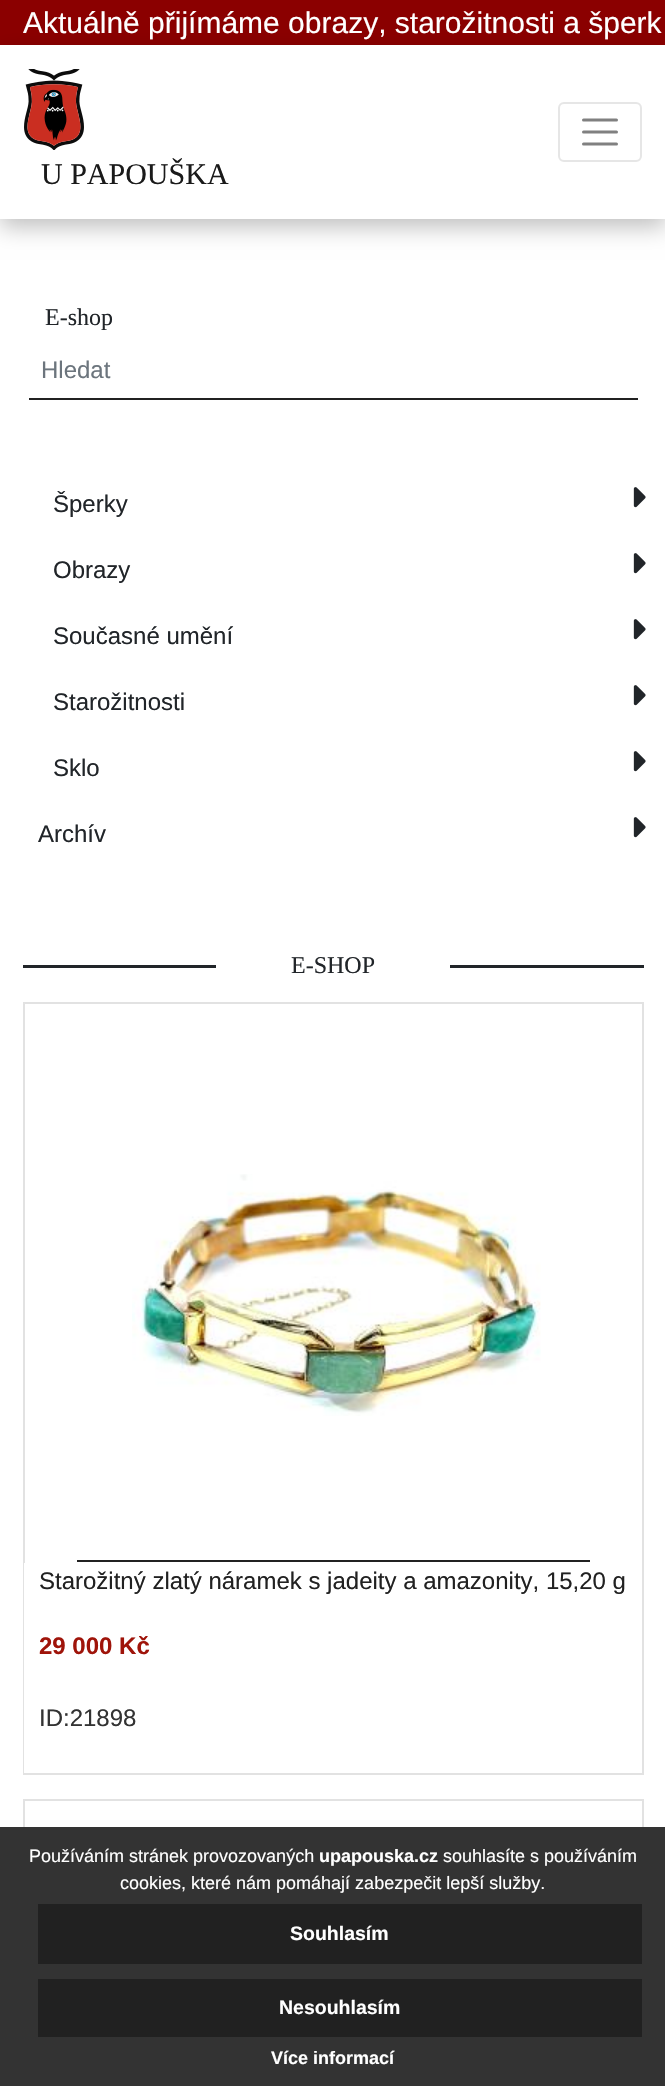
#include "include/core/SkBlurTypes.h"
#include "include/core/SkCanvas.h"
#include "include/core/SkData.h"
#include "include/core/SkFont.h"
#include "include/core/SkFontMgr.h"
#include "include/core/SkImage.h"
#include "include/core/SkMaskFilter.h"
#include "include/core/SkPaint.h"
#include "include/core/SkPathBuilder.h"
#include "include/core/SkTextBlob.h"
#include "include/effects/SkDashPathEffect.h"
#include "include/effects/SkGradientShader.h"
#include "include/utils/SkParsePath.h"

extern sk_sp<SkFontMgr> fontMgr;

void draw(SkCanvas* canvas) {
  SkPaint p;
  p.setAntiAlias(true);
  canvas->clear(SK_ColorWHITE);
  p.setColor(SkColorSetRGB(139, 0, 0));
  canvas->drawRect(SkRect::MakeLTRB(0, 0, 665, 45), p);
  canvas->save();
  canvas->clipPath(SkPathBuilder(SkPathFillType::kEvenOdd).moveTo(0, 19).lineTo(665, 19).lineTo(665, 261).lineTo(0, 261).close().moveTo(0, 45).lineTo(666, 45).lineTo(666, 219).lineTo(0, 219).close().detach(), true);
  p.setColor(SkColorSetARGB(64, 0, 0, 0));
  p.setMaskFilter(SkMaskFilter::MakeBlur(kNormal_SkBlurStyle, 11));
  canvas->drawRect(SkRect::MakeLTRB(0, 53, 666, 227), p);
  p.setMaskFilter(nullptr);
  canvas->restore();
  p.setStyle(SkPaint::kStroke_Style);
  p.setStrokeWidth(2);
  p.setColor(SkColorSetRGB(230, 230, 230));
  canvas->drawRoundRect(SkRect::MakeLTRB(559, 103, 641, 161), 5, 5, p);
  p.setStrokeWidth(3);
  p.setStrokeCap(SkPaint::kRound_Cap);
  p.setColor(SkColorSetRGB(128, 128, 128));
  canvas->drawPath(SkPathBuilder().moveTo(583.5f, 120).lineTo(616.5f, 120).moveTo(583.5f, 132).lineTo(616.5f, 132).moveTo(583.5f, 144).lineTo(616.5f, 144).detach(), p);
  canvas->drawImageRect(SkImages::DeferredFromEncodedData(SkData::MakeFromFileName("images/1.png")), SkRect::MakeLTRB(24, 69, 84, 150), SkSamplingOptions());
  p.setStyle(SkPaint::kFill_Style);
  p.setColor(SkColorSetRGB(33, 33, 33));
  canvas->drawRect(SkRect::MakeLTRB(29, 398, 638, 400), p);
  canvas->drawImageRect(SkImages::DeferredFromEncodedData(SkData::MakeFromFileName("images/2.png")), SkRect::MakeLTRB(633, 487, 646, 508), SkSamplingOptions());
  canvas->drawImageRect(SkImages::DeferredFromEncodedData(SkData::MakeFromFileName("images/2.png")), SkRect::MakeLTRB(633, 553, 646, 574), SkSamplingOptions());
  canvas->drawImageRect(SkImages::DeferredFromEncodedData(SkData::MakeFromFileName("images/2.png")), SkRect::MakeLTRB(633, 619, 646, 640), SkSamplingOptions());
  canvas->drawImageRect(SkImages::DeferredFromEncodedData(SkData::MakeFromFileName("images/2.png")), SkRect::MakeLTRB(633, 685, 646, 706), SkSamplingOptions());
  canvas->drawImageRect(SkImages::DeferredFromEncodedData(SkData::MakeFromFileName("images/2.png")), SkRect::MakeLTRB(633, 751, 646, 772), SkSamplingOptions());
  canvas->drawImageRect(SkImages::DeferredFromEncodedData(SkData::MakeFromFileName("images/2.png")), SkRect::MakeLTRB(633, 817, 646, 838), SkSamplingOptions());
  p.setColor(SkColorSetRGB(33, 37, 41));
  canvas->drawRect(SkRect::MakeLTRB(23, 965, 216, 968), p);
  canvas->drawRect(SkRect::MakeLTRB(450, 965, 644, 968), p);
  p.setStyle(SkPaint::kStroke_Style);
  p.setStrokeWidth(2);
  p.setStrokeCap(SkPaint::kButt_Cap);
  p.setColor(SkColorSetRGB(226, 226, 226));
  canvas->drawRect(SkRect::MakeLTRB(24, 1003, 643, 1774), p);
  canvas->drawImageRect(SkImages::DeferredFromEncodedData(SkData::MakeFromFileName("images/3.png")), SkRect::MakeLTRB(132, 1174, 541, 1416), SkSamplingOptions());
  p.setStyle(SkPaint::kFill_Style);
  p.setColor(SkColorSetRGB(33, 33, 33));
  canvas->drawRect(SkRect::MakeLTRB(77, 1560, 590, 1562), p);
  p.setColor(SK_ColorWHITE);
  canvas->drawRect(SkRect::MakeLTRB(24, 1563, 25, 1773), p);
  p.setStyle(SkPaint::kStroke_Style);
  p.setColor(SkColorSetRGB(226, 226, 226));
  canvas->drawRect(SkRect::MakeLTRB(24, 1800, 643, 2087), p);
  p.setStyle(SkPaint::kFill_Style);
  p.setColor(SkColorSetRGB(51, 51, 51));
  canvas->drawRect(SkRect::MakeLTRB(0, 1827, 665, 2086), p);
  p.setColor(SkColorSetRGB(33, 33, 33));
  canvas->drawRect(SkRect::MakeLTRB(38, 1904, 642, 1964), p);
  canvas->drawRect(SkRect::MakeLTRB(38, 1979, 642, 2037), p);
  SkFont font1(fontMgr->matchFamilyStyle("Liberation Sans", SkFontStyle::Normal()), 30);
  font1.setSubpixel(true);
  p.setColor(SK_ColorWHITE);
  canvas->drawString("Aktuálně přijímáme obrazy, starožitnosti a šperk", 23, 33, font1, p);
  SkFont font2(fontMgr->matchFamilyStyle("Liberation Serif", SkFontStyle::Normal()), 30);
  font2.setSubpixel(true);
  p.setColor(SkColorSetRGB(26, 26, 26));
  canvas->drawString("U PAPOUŠKA", 41, 184, font2, p);
  SkFont font3(fontMgr->matchFamilyStyle("Liberation Serif", SkFontStyle::Normal()), 24);
  font3.setSubpixel(true);
  p.setColor(SkColorSetRGB(33, 37, 41));
  canvas->drawString("E-shop", 45, 325, font3, p);
  SkFont font4(fontMgr->matchFamilyStyle("Liberation Sans", SkFontStyle::Normal()), 24);
  font4.setSubpixel(true);
  p.setColor(SkColorSetRGB(108, 117, 125));
  canvas->drawString("Hledat", 41, 378, font4, p);
  p.setColor(SkColorSetRGB(33, 37, 41));
  canvas->drawString("Šperky", 53, 512, font4, p);
  canvas->drawString("Obrazy", 53, 578, font4, p);
  canvas->drawString("Současné umění", 53, 644, font4, p);
  canvas->drawString("Starožitnosti", 53, 710, font4, p);
  canvas->drawString("Sklo", 53, 776, font4, p);
  canvas->drawString("Archív", 38, 842, font4, p);
  canvas->drawString("E-SHOP", 291, 973, font3, p);
  p.setColor(SkColorSetRGB(33, 33, 33));
  canvas->drawString("Starožitný zlatý náramek s jadeity a amazonity, 15,20 g", 39, 1589, font4, p);
  SkFont font5(fontMgr->matchFamilyStyle("Liberation Sans", SkFontStyle::Bold()), 24);
  font5.setSubpixel(true);
  p.setColor(SkColorSetRGB(159, 20, 10));
  canvas->drawString("29 000 Kč", 39, 1654, font5, p);
  p.setColor(SkColorSetRGB(51, 51, 51));
  canvas->drawString("ID:21898", 39, 1726, font4, p);
  SkFont font6(fontMgr->matchFamilyStyle("Liberation Sans", SkFontStyle::Normal()), 18);
  font6.setSubpixel(true);
  p.setColor(SK_ColorWHITE);
  canvas->drawString("Používáním stránek provozovaných", 29, 1862, font6, p);
  SkFont font7(fontMgr->matchFamilyStyle("Liberation Sans", SkFontStyle::Bold()), 18);
  font7.setSubpixel(true);
  canvas->drawString("upapouska.cz", 319, 1862, font7, p);
  canvas->drawString("souhlasíte s používáním", 443, 1862, font6, p);
  canvas->drawString("cookies, které nám pomáhají zabezpečit lepší služby.", 120, 1889, font6, p);
  SkFont font8(fontMgr->matchFamilyStyle("Liberation Sans", SkFontStyle::Bold()), 19.5f);
  font8.setSubpixel(true);
  canvas->drawString("Souhlasím", 290, 1940, font8, p);
  canvas->drawString("Nesouhlasím", 279, 2014, font8, p);
  canvas->drawString("Více informací", 271, 2064, font7, p);
}
